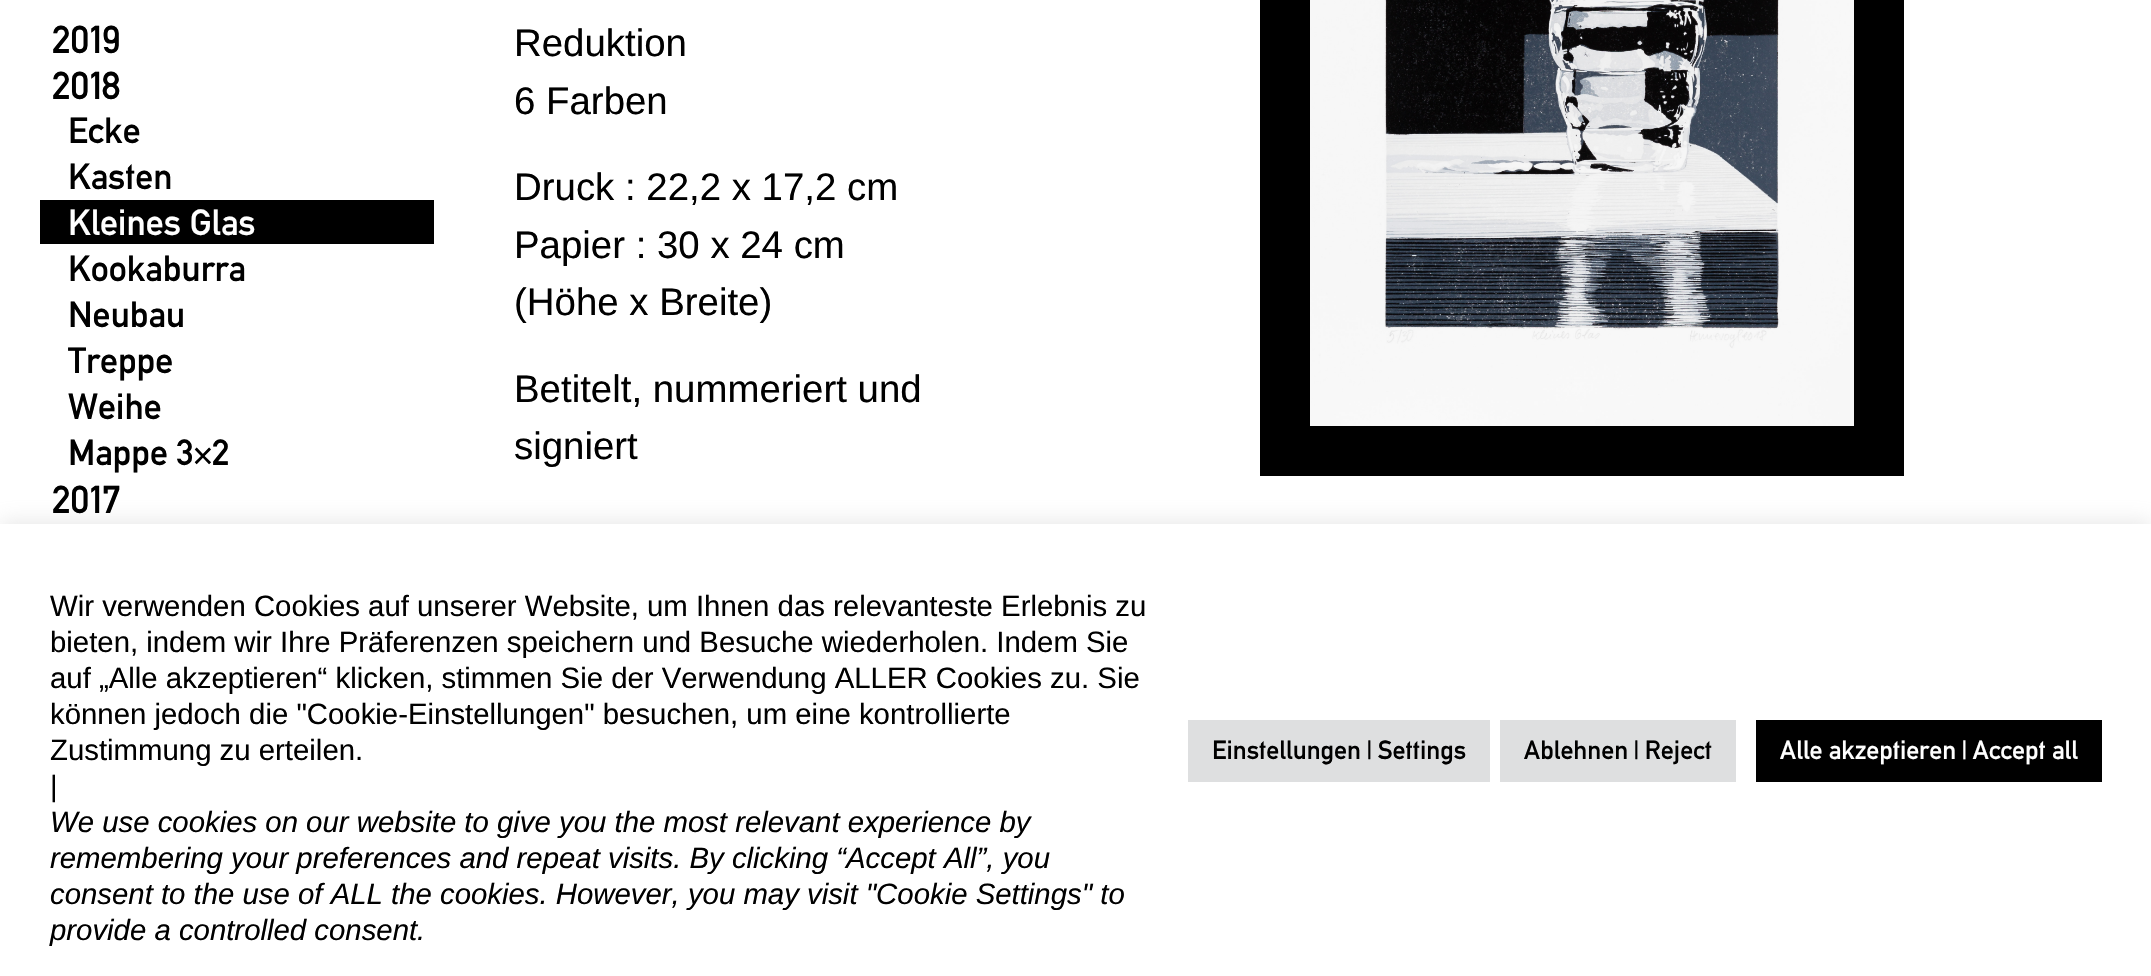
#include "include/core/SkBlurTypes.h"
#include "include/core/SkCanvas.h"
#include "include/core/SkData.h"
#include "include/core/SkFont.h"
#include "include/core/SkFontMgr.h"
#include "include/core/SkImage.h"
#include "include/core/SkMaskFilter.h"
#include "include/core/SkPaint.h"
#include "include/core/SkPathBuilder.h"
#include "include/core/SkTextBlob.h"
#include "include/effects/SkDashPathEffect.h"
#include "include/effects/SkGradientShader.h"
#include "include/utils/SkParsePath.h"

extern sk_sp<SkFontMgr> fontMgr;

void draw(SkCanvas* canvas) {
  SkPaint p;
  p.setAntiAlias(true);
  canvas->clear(SK_ColorWHITE);
  p.setColor(SK_ColorBLACK);
  canvas->drawRect(SkRect::MakeLTRB(40, 200, 434, 244), p);
  p.setStyle(SkPaint::kStroke_Style);
  p.setStrokeWidth(50);
  canvas->drawRect(SkRect::MakeLTRB(1285, -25, 1879, 451), p);
  canvas->drawImageRect(SkImages::DeferredFromEncodedData(SkData::MakeFromFileName("images/1.png")), SkRect::MakeLTRB(1310, 0, 1854, 426), SkSamplingOptions());
  p.setStyle(SkPaint::kFill_Style);
  p.setColor(SkColorSetARGB(77, 172, 171, 171));
  p.setMaskFilter(SkMaskFilter::MakeBlur(kNormal_SkBlurStyle, 10));
  canvas->drawRect(SkRect::MakeLTRB(0, 522, 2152, 974), p);
  p.setMaskFilter(nullptr);
  p.setColor(SK_ColorWHITE);
  canvas->drawRect(SkRect::MakeLTRB(0, 524, 2151, 976), p);
  p.setColor(SkColorSetRGB(222, 223, 224));
  canvas->drawRect(SkRect::MakeLTRB(1188, 720, 1490, 782), p);
  canvas->drawRect(SkRect::MakeLTRB(1500, 720, 1736, 782), p);
  p.setColor(SK_ColorBLACK);
  canvas->drawRect(SkRect::MakeLTRB(1756, 720, 2102, 782), p);
  SkFont font1(fontMgr->matchFamilyStyle("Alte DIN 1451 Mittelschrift", SkFontStyle::Normal()), 38.4f);
  font1.setSubpixel(true);
  canvas->drawString("2019", 52, 53, font1, p);
  canvas->drawString("2018", 52, 99, font1, p);
  SkFont font2(fontMgr->matchFamilyStyle("Alte DIN 1451 Mittelschrift", SkFontStyle::Normal()), 36);
  font2.setSubpixel(true);
  canvas->drawString("Ecke", 68, 143, font2, p);
  canvas->drawString("Kasten", 68, 189, font2, p);
  p.setColor(SK_ColorWHITE);
  canvas->drawString("Kleines Glas", 68, 235, font2, p);
  p.setColor(SK_ColorBLACK);
  canvas->drawString("Kookaburra", 68, 281, font2, p);
  canvas->drawString("Neubau", 68, 327, font2, p);
  canvas->drawString("Treppe", 68, 373, font2, p);
  canvas->drawString("Weihe", 68, 419, font2, p);
  canvas->drawString("Mappe 3×2", 68, 465, font2, p);
  canvas->drawString("2017", 52, 513, font1, p);
  SkFont font3(fontMgr->matchFamilyStyle("Liberation Sans", SkFontStyle::Normal()), 38.4f);
  font3.setSubpixel(true);
  canvas->drawString("Reduktion", 514, 56, font3, p);
  canvas->drawString("6 Farben", 514, 114, font3, p);
  canvas->drawString("Druck : 22,2 x 17,2 cm", 514, 200, font3, p);
  canvas->drawString("Papier : 30 x 24 cm", 514, 258, font3, p);
  canvas->drawString("(Höhe x Breite)", 514, 315, font3, p);
  canvas->drawString("Betitelt, nummeriert und", 514, 402, font3, p);
  canvas->drawString("signiert", 514, 459, font3, p);
  SkFont font4(fontMgr->matchFamilyStyle("Liberation Sans", SkFontStyle::Normal()), 29.35f);
  font4.setSubpixel(true);
  canvas->drawString("Wir verwenden Cookies auf unserer Website, um Ihnen das relevanteste Erlebnis zu", 50, 616, font4, p);
  canvas->drawString("bieten, indem wir Ihre Präferenzen speichern und Besuche wiederholen. Indem Sie", 50, 652, font4, p);
  canvas->drawString("auf „Alle akzeptieren“ klicken, stimmen Sie der Verwendung ALLER Cookies zu. Sie", 50, 688, font4, p);
  canvas->drawString("können jedoch die \"Cookie-Einstellungen\" besuchen, um eine kontrollierte", 50, 724, font4, p);
  canvas->drawString("Zustimmung zu erteilen.", 50, 760, font4, p);
  canvas->drawString("|", 50, 796, font4, p);
  SkFont font5(fontMgr->matchFamilyStyle("Liberation Sans", SkFontStyle::Italic()), 29.35f);
  font5.setSubpixel(true);
  canvas->drawString("We use cookies on our website to give you the most relevant experience by", 50, 832, font5, p);
  canvas->drawString("remembering your preferences and repeat visits. By clicking “Accept All”, you", 50, 868, font5, p);
  canvas->drawString("consent to the use of ALL the cookies. However, you may visit \"Cookie Settings\" to", 50, 904, font5, p);
  canvas->drawString("provide a controlled consent.", 50, 940, font5, p);
  SkFont font6(fontMgr->matchFamilyStyle("Alte DIN 1451 Mittelschrift", SkFontStyle::Normal()), 26);
  font6.setSubpixel(true);
  canvas->drawString("Einstellungen | Settings", 1212, 759, font6, p);
  canvas->drawString("Ablehnen | Reject", 1524, 759, font6, p);
  p.setColor(SK_ColorWHITE);
  canvas->drawString("Alle akzeptieren | Accept all", 1780, 759, font6, p);
}
